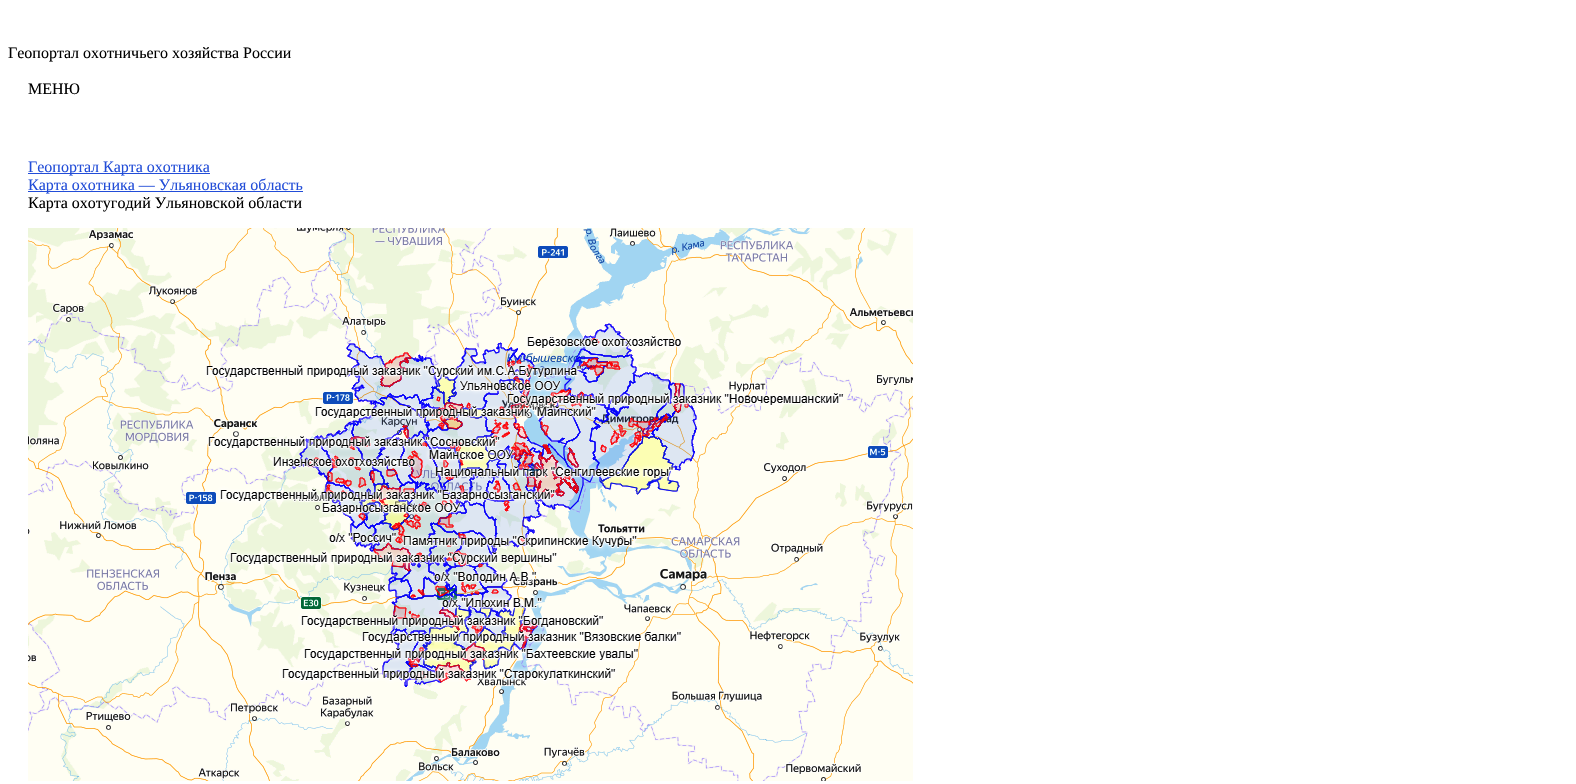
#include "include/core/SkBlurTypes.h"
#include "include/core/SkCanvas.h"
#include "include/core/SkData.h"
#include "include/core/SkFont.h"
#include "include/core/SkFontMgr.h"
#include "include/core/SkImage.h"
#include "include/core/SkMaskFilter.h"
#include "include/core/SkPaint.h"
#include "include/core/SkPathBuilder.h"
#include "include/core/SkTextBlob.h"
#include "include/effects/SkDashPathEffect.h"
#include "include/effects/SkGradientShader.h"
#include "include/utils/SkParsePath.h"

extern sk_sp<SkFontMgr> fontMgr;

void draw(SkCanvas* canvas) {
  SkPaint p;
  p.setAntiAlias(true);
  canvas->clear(SK_ColorWHITE);
  p.setColor(SkColorSetRGB(34, 77, 216));
  canvas->drawRect(SkRect::MakeLTRB(28, 173, 210, 174), p);
  canvas->drawRect(SkRect::MakeLTRB(28, 191, 303, 192), p);
  canvas->drawImageRect(SkImages::DeferredFromEncodedData(SkData::MakeFromFileName("images/1.png")), SkRect::MakeLTRB(28, 228, 913, 781), SkSamplingOptions());
  SkFont font1(fontMgr->matchFamilyStyle("Liberation Serif", SkFontStyle::Normal()), 16);
  font1.setSubpixel(true);
  p.setColor(SK_ColorBLACK);
  canvas->drawString("Геопортал охотничьего хозяйства России", 8, 58, font1, p);
  canvas->drawString("МЕНЮ", 28, 94, font1, p);
  p.setColor(SkColorSetRGB(34, 77, 216));
  canvas->drawString("Геопортал Карта охотника", 28, 172, font1, p);
  canvas->drawString("Карта охотника — Ульяновская область", 28, 190, font1, p);
  p.setColor(SK_ColorBLACK);
  canvas->drawString("Карта охотугодий Ульяновской области", 28, 208, font1, p);
}
